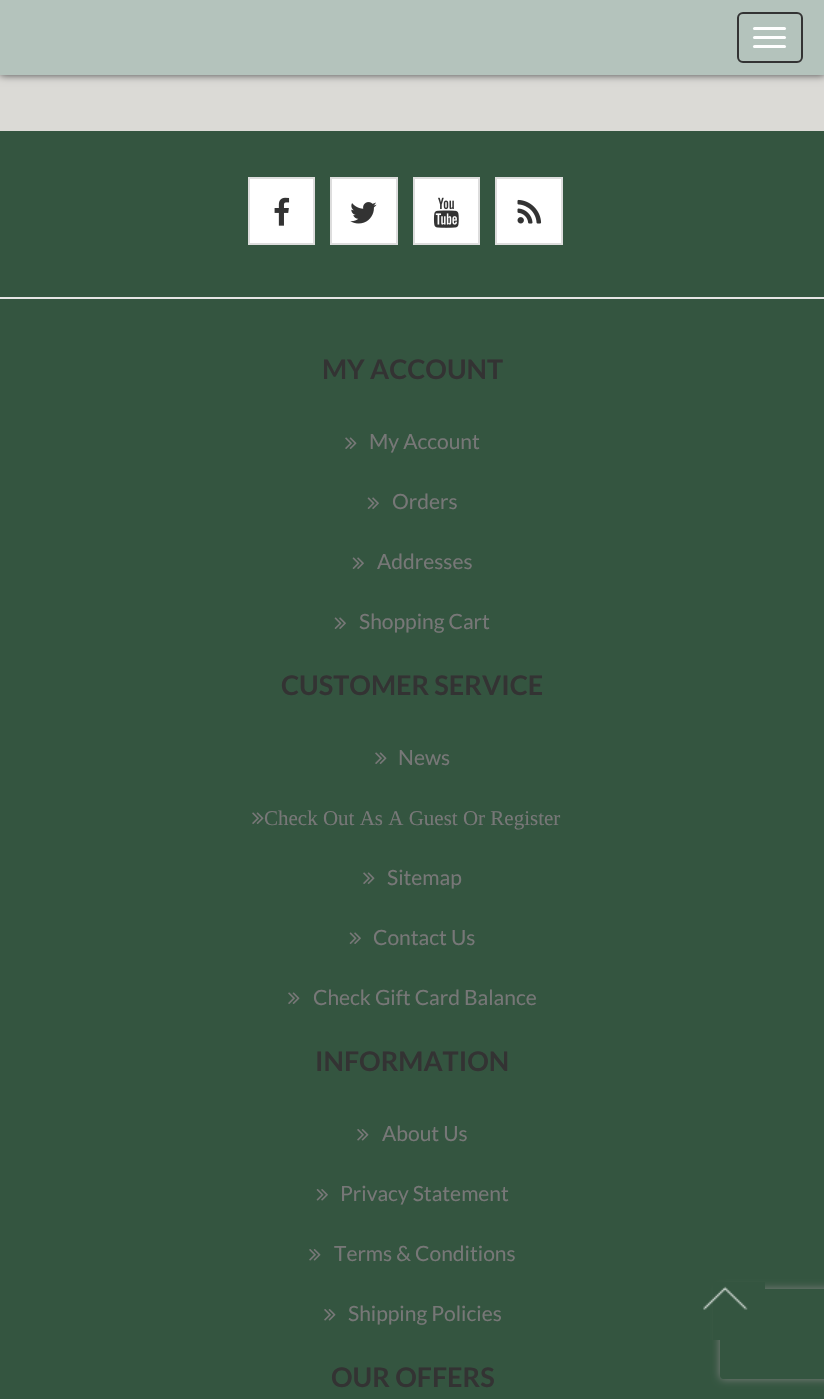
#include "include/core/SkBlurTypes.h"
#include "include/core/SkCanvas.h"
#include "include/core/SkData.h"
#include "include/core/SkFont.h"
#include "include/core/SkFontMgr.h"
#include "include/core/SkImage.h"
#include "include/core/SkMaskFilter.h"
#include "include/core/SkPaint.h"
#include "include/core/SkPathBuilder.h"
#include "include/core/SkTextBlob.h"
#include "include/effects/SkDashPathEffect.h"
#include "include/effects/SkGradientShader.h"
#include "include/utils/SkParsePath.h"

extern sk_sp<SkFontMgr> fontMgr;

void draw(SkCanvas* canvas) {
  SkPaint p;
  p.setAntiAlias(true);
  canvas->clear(SkColorSetRGB(219, 218, 214));
  p.setColor(SkColorSetRGB(68, 68, 68));
  p.setMaskFilter(SkMaskFilter::MakeBlur(kNormal_SkBlurStyle, 4));
  canvas->drawRect(SkRect::MakeLTRB(0, 0, 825, 75), p);
  p.setMaskFilter(nullptr);
  p.setColor(SkColorSetRGB(180, 195, 188));
  canvas->drawRect(SkRect::MakeLTRB(0, 0, 824, 75), p);
  p.setStyle(SkPaint::kStroke_Style);
  p.setStrokeWidth(2);
  p.setColor(SkColorSetRGB(51, 51, 51));
  canvas->drawRoundRect(SkRect::MakeLTRB(738, 13, 802, 62), 5, 5, p);
  p.setStyle(SkPaint::kFill_Style);
  p.setColor(SK_ColorWHITE);
  canvas->drawRoundRect(SkRect::MakeLTRB(753, 27, 786, 30), 1.5f, 1.5f, p);
  canvas->drawRoundRect(SkRect::MakeLTRB(753, 36, 786, 39), 1.5f, 1.5f, p);
  canvas->drawRoundRect(SkRect::MakeLTRB(753, 45, 786, 48), 1.5f, 1.5f, p);
  p.setColor(SkColorSetRGB(52, 85, 64));
  canvas->drawRect(SkRect::MakeLTRB(0, 131, 824, 1399), p);
  p.setColor(SkColorSetRGB(229, 229, 229));
  canvas->drawRect(SkRect::MakeLTRB(0, 297, 824, 299), p);
  p.setColor(SK_ColorWHITE);
  canvas->drawRect(SkRect::MakeLTRB(249, 178, 314, 244), p);
  p.setStyle(SkPaint::kStroke_Style);
  p.setColor(SkColorSetRGB(221, 221, 221));
  canvas->drawRect(SkRect::MakeLTRB(249, 178, 314, 244), p);
  canvas->drawImageRect(SkImages::DeferredFromEncodedData(SkData::MakeFromFileName("images/1.png")), SkRect::MakeLTRB(274, 197, 290, 226), SkSamplingOptions());
  p.setStyle(SkPaint::kFill_Style);
  p.setColor(SK_ColorWHITE);
  canvas->drawRect(SkRect::MakeLTRB(331, 178, 397, 244), p);
  p.setStyle(SkPaint::kStroke_Style);
  p.setColor(SkColorSetRGB(221, 221, 221));
  canvas->drawRect(SkRect::MakeLTRB(331, 178, 397, 244), p);
  canvas->drawImageRect(SkImages::DeferredFromEncodedData(SkData::MakeFromFileName("images/2.png")), SkRect::MakeLTRB(350, 202, 377, 224), SkSamplingOptions());
  p.setStyle(SkPaint::kFill_Style);
  p.setColor(SK_ColorWHITE);
  canvas->drawRect(SkRect::MakeLTRB(414, 178, 479, 244), p);
  p.setStyle(SkPaint::kStroke_Style);
  p.setColor(SkColorSetRGB(221, 221, 221));
  canvas->drawRect(SkRect::MakeLTRB(414, 178, 479, 244), p);
  canvas->drawImageRect(SkImages::DeferredFromEncodedData(SkData::MakeFromFileName("images/3.png")), SkRect::MakeLTRB(433, 197, 459, 228), SkSamplingOptions());
  p.setStyle(SkPaint::kFill_Style);
  p.setColor(SK_ColorWHITE);
  canvas->drawRect(SkRect::MakeLTRB(496, 178, 562, 244), p);
  p.setStyle(SkPaint::kStroke_Style);
  p.setColor(SkColorSetRGB(221, 221, 221));
  canvas->drawRect(SkRect::MakeLTRB(496, 178, 562, 244), p);
  canvas->drawImageRect(SkImages::DeferredFromEncodedData(SkData::MakeFromFileName("images/4.png")), SkRect::MakeLTRB(517, 199, 542, 224), SkSamplingOptions());
  canvas->drawImageRect(SkImages::DeferredFromEncodedData(SkData::MakeFromFileName("images/5.png")), SkRect::MakeLTRB(345, 437, 357, 449), SkSamplingOptions());
  canvas->drawImageRect(SkImages::DeferredFromEncodedData(SkData::MakeFromFileName("images/6.png")), SkRect::MakeLTRB(367, 497, 379, 509), SkSamplingOptions());
  canvas->drawImageRect(SkImages::DeferredFromEncodedData(SkData::MakeFromFileName("images/6.png")), SkRect::MakeLTRB(352, 557, 364, 569), SkSamplingOptions());
  canvas->drawImageRect(SkImages::DeferredFromEncodedData(SkData::MakeFromFileName("images/6.png")), SkRect::MakeLTRB(334, 617, 346, 629), SkSamplingOptions());
  canvas->drawImageRect(SkImages::DeferredFromEncodedData(SkData::MakeFromFileName("images/5.png")), SkRect::MakeLTRB(375, 752, 387, 764), SkSamplingOptions());
  canvas->drawImageRect(SkImages::DeferredFromEncodedData(SkData::MakeFromFileName("images/5.png")), SkRect::MakeLTRB(252, 812, 264, 824), SkSamplingOptions());
  canvas->drawImageRect(SkImages::DeferredFromEncodedData(SkData::MakeFromFileName("images/5.png")), SkRect::MakeLTRB(363, 872, 375, 884), SkSamplingOptions());
  canvas->drawImageRect(SkImages::DeferredFromEncodedData(SkData::MakeFromFileName("images/6.png")), SkRect::MakeLTRB(349, 932, 361, 944), SkSamplingOptions());
  canvas->drawImageRect(SkImages::DeferredFromEncodedData(SkData::MakeFromFileName("images/5.png")), SkRect::MakeLTRB(288, 992, 300, 1004), SkSamplingOptions());
  canvas->drawImageRect(SkImages::DeferredFromEncodedData(SkData::MakeFromFileName("images/7.png")), SkRect::MakeLTRB(357, 1129, 369, 1141), SkSamplingOptions());
  canvas->drawImageRect(SkImages::DeferredFromEncodedData(SkData::MakeFromFileName("images/8.png")), SkRect::MakeLTRB(316, 1189, 328, 1201), SkSamplingOptions());
  canvas->drawImageRect(SkImages::DeferredFromEncodedData(SkData::MakeFromFileName("images/7.png")), SkRect::MakeLTRB(309, 1249, 321, 1261), SkSamplingOptions());
  canvas->drawImageRect(SkImages::DeferredFromEncodedData(SkData::MakeFromFileName("images/7.png")), SkRect::MakeLTRB(324, 1309, 336, 1321), SkSamplingOptions());
  canvas->save();
  canvas->clipPath(SkPathBuilder(SkPathFillType::kEvenOdd).moveTo(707, 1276).lineTo(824, 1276).lineTo(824, 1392).lineTo(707, 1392).close().moveTo(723, 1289).lineTo(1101, 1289).cubicTo(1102.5f, 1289, 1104, 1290.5f, 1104, 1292).lineTo(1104, 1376).cubicTo(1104, 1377.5f, 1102.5f, 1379, 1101, 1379).lineTo(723, 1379).cubicTo(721.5f, 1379, 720, 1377.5f, 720, 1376).lineTo(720, 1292).cubicTo(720, 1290.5f, 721.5f, 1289, 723, 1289).close().detach(), true);
  p.setStyle(SkPaint::kFill_Style);
  p.setColor(SkColorSetRGB(128, 128, 128));
  p.setMaskFilter(SkMaskFilter::MakeBlur(kNormal_SkBlurStyle, 4));
  canvas->drawRoundRect(SkRect::MakeLTRB(720, 1289, 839, 1379), 3, 3, p);
  p.setMaskFilter(nullptr);
  canvas->restore();
  p.setColor(SkColorSetRGB(52, 85, 64));
  canvas->drawRect(SkRect::MakeLTRB(713, 1282, 765, 1340), p);
  canvas->drawImageRect(SkImages::DeferredFromEncodedData(SkData::MakeFromFileName("images/9.png")), SkRect::MakeLTRB(703, 1286, 748, 1310), SkSamplingOptions());
  SkFont font1(fontMgr->matchFamilyStyle("Lato", SkFontStyle::Bold()), 27);
  font1.setSubpixel(true);
  p.setColor(SkColorSetRGB(51, 51, 51));
  canvas->drawString("MY ACCOUNT", 322, 379, font1, p);
  SkFont font2(fontMgr->matchFamilyStyle("Lato", SkFontStyle::Normal()), 21);
  font2.setSubpixel(true);
  p.setColor(SkColorSetRGB(119, 119, 119));
  canvas->drawString("My Account", 369, 449, font2, p);
  canvas->drawString("Orders", 392, 509, font2, p);
  canvas->drawString("Addresses", 377, 569, font2, p);
  canvas->drawString("Shopping Cart", 359, 629, font2, p);
  p.setColor(SkColorSetRGB(51, 51, 51));
  canvas->drawString("CUSTOMER SERVICE", 281, 695, font1, p);
  p.setColor(SkColorSetRGB(119, 119, 119));
  canvas->drawString("News", 398, 765, font2, p);
  SkFont font3(fontMgr->matchFamilyStyle("Liberation Serif", SkFontStyle::Normal()), 21);
  font3.setSubpixel(true);
  canvas->drawString("Check Out As A Guest Or Register", 264, 825, font3, p);
  canvas->drawString("Sitemap", 387, 885, font2, p);
  canvas->drawString("Contact Us", 373, 945, font2, p);
  canvas->drawString("Check Gift Card Balance", 313, 1005, font2, p);
  p.setColor(SkColorSetRGB(51, 51, 51));
  canvas->drawString("INFORMATION", 315, 1071, font1, p);
  p.setColor(SkColorSetRGB(119, 119, 119));
  canvas->drawString("About Us", 382, 1141, font2, p);
  canvas->drawString("Privacy Statement", 340, 1201, font2, p);
  canvas->drawString("Terms & Conditions", 334, 1261, font2, p);
  canvas->drawString("Shipping Policies", 348, 1321, font2, p);
  p.setColor(SkColorSetRGB(51, 51, 51));
  canvas->drawString("OUR OFFERS", 331, 1387, font1, p);
}
